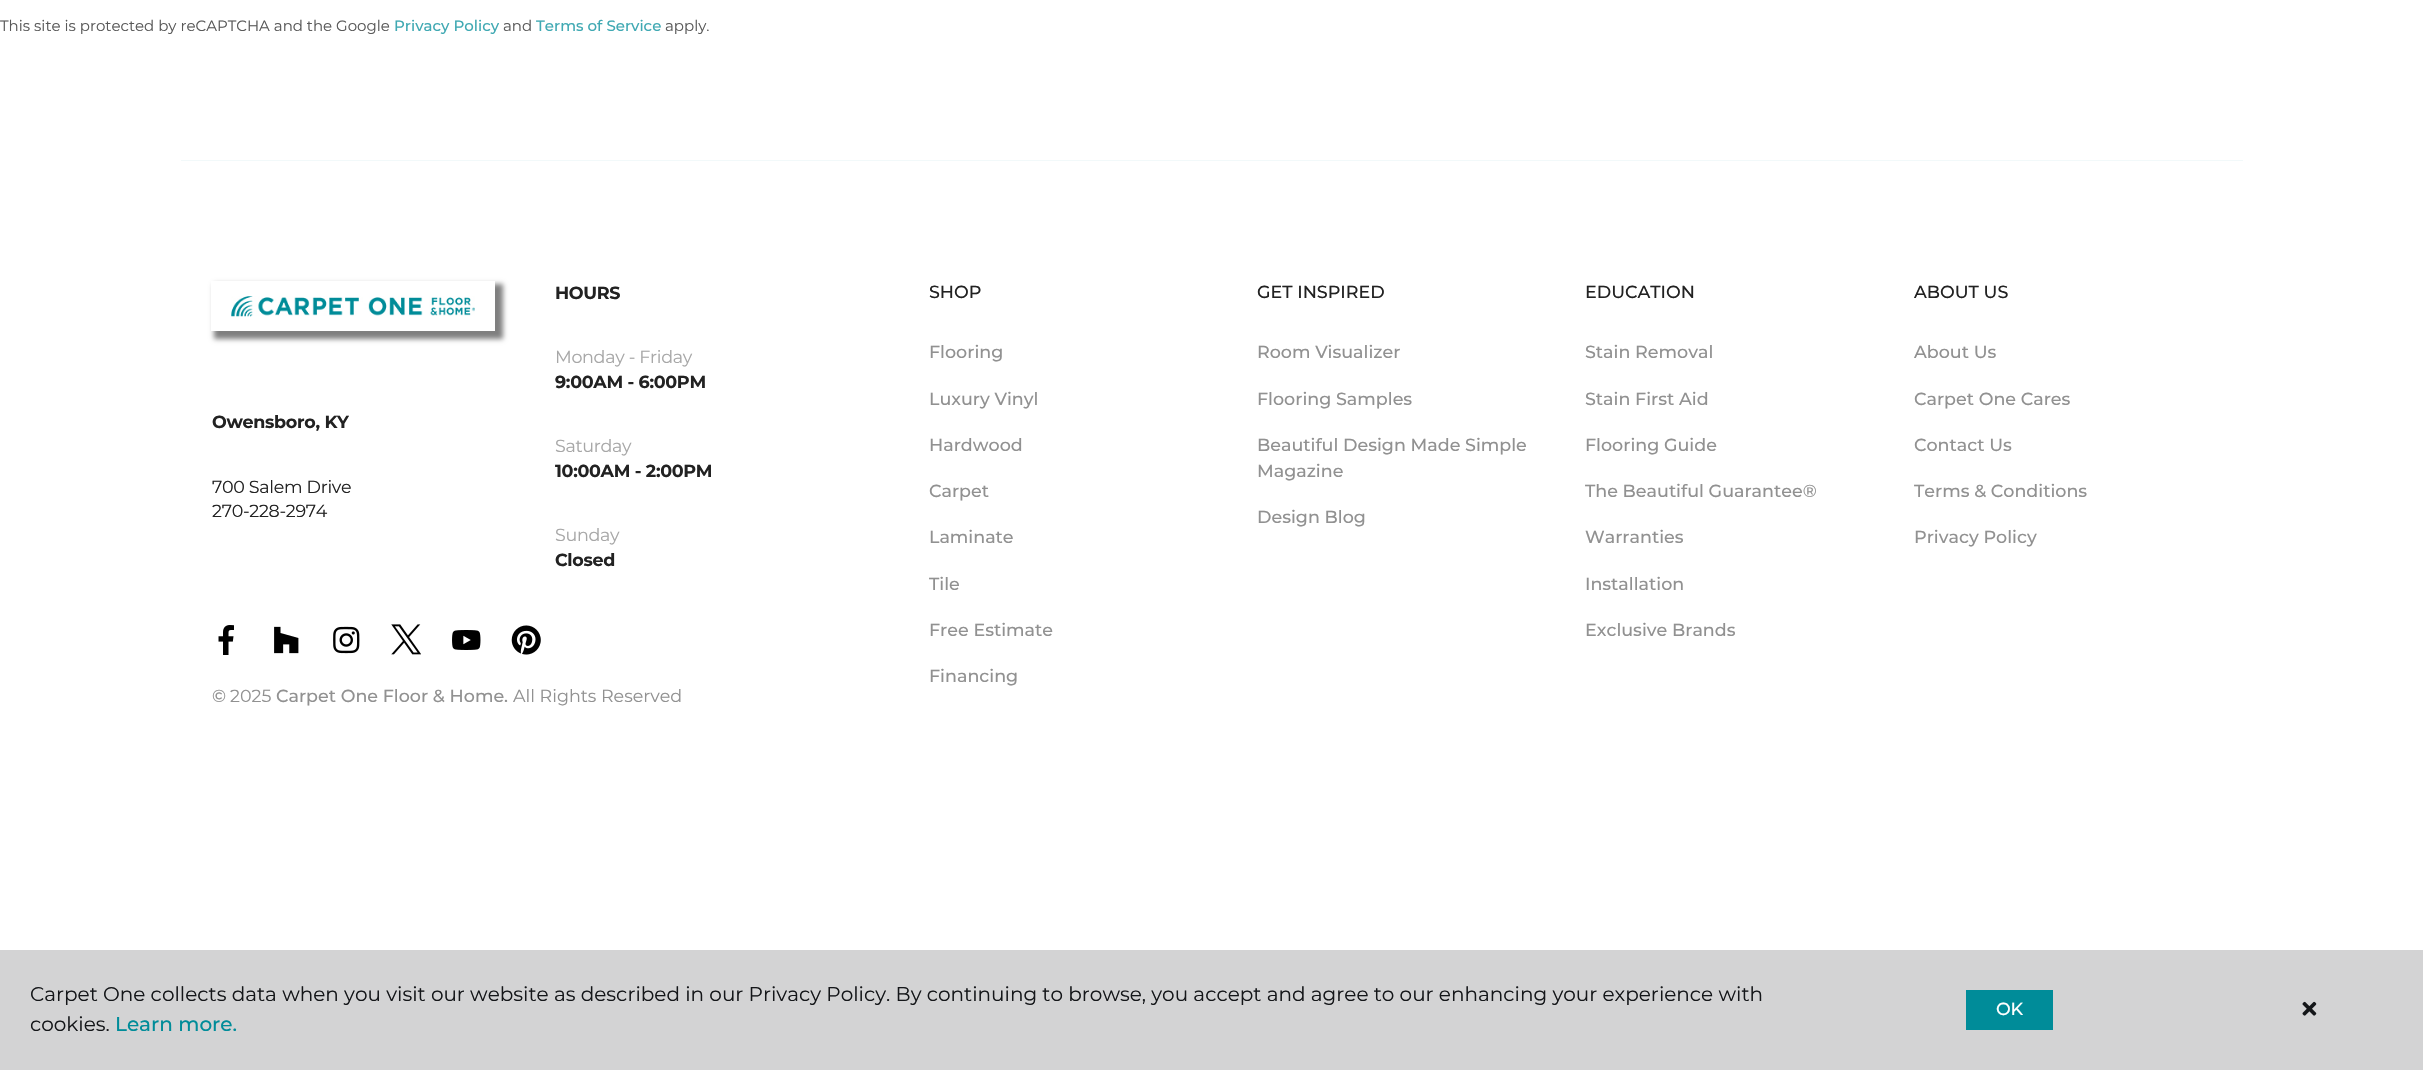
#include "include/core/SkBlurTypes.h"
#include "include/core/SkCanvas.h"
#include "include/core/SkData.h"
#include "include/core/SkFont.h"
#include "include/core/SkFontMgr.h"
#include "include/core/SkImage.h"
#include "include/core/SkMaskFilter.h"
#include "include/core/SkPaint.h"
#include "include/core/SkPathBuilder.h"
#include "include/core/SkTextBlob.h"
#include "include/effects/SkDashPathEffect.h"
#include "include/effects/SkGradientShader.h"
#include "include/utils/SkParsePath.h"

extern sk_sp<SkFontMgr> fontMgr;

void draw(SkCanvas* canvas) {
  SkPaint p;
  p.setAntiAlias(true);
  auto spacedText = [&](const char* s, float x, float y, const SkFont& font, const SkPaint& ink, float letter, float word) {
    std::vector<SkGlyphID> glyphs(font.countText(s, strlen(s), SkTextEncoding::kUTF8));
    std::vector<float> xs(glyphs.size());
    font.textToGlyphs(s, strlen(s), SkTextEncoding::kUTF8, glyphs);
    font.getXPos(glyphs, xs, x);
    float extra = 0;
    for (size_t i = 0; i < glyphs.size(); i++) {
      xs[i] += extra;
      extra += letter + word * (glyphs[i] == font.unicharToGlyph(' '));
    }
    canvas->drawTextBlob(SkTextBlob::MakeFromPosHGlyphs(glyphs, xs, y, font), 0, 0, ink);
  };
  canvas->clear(SK_ColorWHITE);
  p.setColor(SkColorSetRGB(242, 249, 250));
  canvas->drawRect(SkRect::MakeLTRB(181, 160, 2243, 161), p);
  p.setColor(SkColorSetARGB(128, 0, 0, 0));
  p.setMaskFilter(SkMaskFilter::MakeBlur(kNormal_SkBlurStyle, 2.5f));
  canvas->drawRect(SkRect::MakeLTRB(214, 284, 503, 339), p);
  p.setMaskFilter(nullptr);
  p.setColor(SK_ColorWHITE);
  canvas->drawRect(SkRect::MakeLTRB(211, 281, 495, 331), p);
  canvas->drawImageRect(SkImages::DeferredFromEncodedData(SkData::MakeFromFileName("images/1.png")), SkRect::MakeLTRB(231, 296, 475, 317), SkSamplingOptions());
  canvas->drawImageRect(SkImages::DeferredFromEncodedData(SkData::MakeFromFileName("images/2.png")), SkRect::MakeLTRB(218, 625, 234, 655), SkSamplingOptions());
  canvas->drawImageRect(SkImages::DeferredFromEncodedData(SkData::MakeFromFileName("images/3.png")), SkRect::MakeLTRB(274, 626, 299, 654), SkSamplingOptions());
  canvas->drawImageRect(SkImages::DeferredFromEncodedData(SkData::MakeFromFileName("images/4.png")), SkRect::MakeLTRB(333, 626, 360, 654), SkSamplingOptions());
  canvas->drawImageRect(SkImages::DeferredFromEncodedData(SkData::MakeFromFileName("images/5.png")), SkRect::MakeLTRB(391, 624, 421, 655), SkSamplingOptions());
  canvas->drawImageRect(SkImages::DeferredFromEncodedData(SkData::MakeFromFileName("images/6.png")), SkRect::MakeLTRB(452, 630, 481, 650), SkSamplingOptions());
  canvas->drawImageRect(SkImages::DeferredFromEncodedData(SkData::MakeFromFileName("images/7.png")), SkRect::MakeLTRB(511, 625, 541, 655), SkSamplingOptions());
  p.setColor(SkColorSetRGB(211, 211, 212));
  canvas->drawRect(SkRect::MakeLTRB(0, 950, 2423, 1070), p);
  p.setColor(SkColorSetRGB(0, 140, 153));
  canvas->drawRect(SkRect::MakeLTRB(1966, 990, 2053, 1030), p);
  canvas->drawImageRect(SkImages::DeferredFromEncodedData(SkData::MakeFromFileName("images/8.png")), SkRect::MakeLTRB(2302, 1001, 2317, 1016), SkSamplingOptions());
  SkFont font1(fontMgr->matchFamilyStyle("Montserrat", SkFontStyle::Normal()), 15);
  font1.setSubpixel(true);
  p.setColor(SkColorSetRGB(89, 89, 89));
  canvas->drawString("This site is protected by reCAPTCHA and the Google", 0, 31, font1, p);
  SkFont font2(fontMgr->matchFamilyStyle("Montserrat", SkFontStyle(500, SkFontStyle::kNormal_Width, SkFontStyle::kUpright_Slant)), 15);
  font2.setSubpixel(true);
  p.setColor(SkColorSetRGB(64, 169, 179));
  canvas->drawString("Privacy Policy", 394, 31, font2, p);
  p.setColor(SkColorSetRGB(89, 89, 89));
  canvas->drawString("and", 503, 31, font1, p);
  p.setColor(SkColorSetRGB(64, 169, 179));
  canvas->drawString("Terms of Service", 536, 31, font2, p);
  p.setColor(SkColorSetRGB(89, 89, 89));
  canvas->drawString("apply.", 665, 31, font1, p);
  SkFont font3(fontMgr->matchFamilyStyle("Montserrat", SkFontStyle::Bold()), 17.5f);
  font3.setSubpixel(true);
  p.setColor(SkColorSetRGB(34, 34, 34));
  spacedText("Owensboro, KY", 212, 428, font3, p, -0.3f, 0);
  SkFont font4(fontMgr->matchFamilyStyle("Montserrat", SkFontStyle::Normal()), 17.5f);
  font4.setSubpixel(true);
  spacedText("700 Salem Drive", 212, 493, font4, p, -0.3f, 0);
  spacedText("270-228-2974", 212, 517, font4, p, -0.3f, 0);
  spacedText("HOURS", 555, 299, font3, p, -0.3f, 0);
  p.setColor(SkColorSetRGB(167, 167, 167));
  spacedText("Monday - Friday", 555, 363, font4, p, -0.3f, 0);
  p.setColor(SkColorSetRGB(34, 34, 34));
  spacedText("9:00AM - 6:00PM", 555, 388, font3, p, -0.3f, 0);
  p.setColor(SkColorSetRGB(167, 167, 167));
  spacedText("Saturday", 555, 452, font4, p, -0.3f, 0);
  p.setColor(SkColorSetRGB(34, 34, 34));
  spacedText("10:00AM - 2:00PM", 555, 477, font3, p, -0.3f, 0);
  p.setColor(SkColorSetRGB(167, 167, 167));
  spacedText("Sunday", 555, 541, font4, p, -0.3f, 0);
  p.setColor(SkColorSetRGB(34, 34, 34));
  spacedText("Closed", 555, 566, font3, p, -0.3f, 0);
  SkFont font5(fontMgr->matchFamilyStyle("Montserrat", SkFontStyle(500, SkFontStyle::kNormal_Width, SkFontStyle::kUpright_Slant)), 17.5f);
  font5.setSubpixel(true);
  p.setColor(SkColorSetRGB(145, 145, 145));
  canvas->drawString("©", 212, 702, font5, p);
  canvas->drawString("2025", 230, 702, font4, p);
  canvas->drawString("Carpet One Floor & Home.", 276, 702, font5, p);
  canvas->drawString("All Rights Reserved", 513, 702, font4, p);
  p.setColor(SkColorSetRGB(34, 34, 34));
  canvas->drawString("SHOP", 929, 298, font5, p);
  p.setColor(SkColorSetRGB(145, 145, 145));
  canvas->drawString("Flooring", 929, 358, font5, p);
  canvas->drawString("Luxury Vinyl", 929, 405, font5, p);
  canvas->drawString("Hardwood", 929, 451, font5, p);
  canvas->drawString("Carpet", 929, 497, font5, p);
  canvas->drawString("Laminate", 929, 543, font5, p);
  canvas->drawString("Tile", 929, 590, font5, p);
  canvas->drawString("Free Estimate", 929, 636, font5, p);
  canvas->drawString("Financing", 929, 682, font5, p);
  p.setColor(SkColorSetRGB(34, 34, 34));
  canvas->drawString("GET INSPIRED", 1257, 298, font5, p);
  p.setColor(SkColorSetRGB(145, 145, 145));
  canvas->drawString("Room Visualizer", 1257, 358, font5, p);
  canvas->drawString("Flooring Samples", 1257, 405, font5, p);
  canvas->drawString("Beautiful Design Made Simple", 1257, 451, font5, p);
  canvas->drawString("Magazine", 1257, 477, font5, p);
  canvas->drawString("Design Blog", 1257, 523, font5, p);
  p.setColor(SkColorSetRGB(34, 34, 34));
  canvas->drawString("EDUCATION", 1585, 298, font5, p);
  p.setColor(SkColorSetRGB(145, 145, 145));
  canvas->drawString("Stain Removal", 1585, 358, font5, p);
  canvas->drawString("Stain First Aid", 1585, 405, font5, p);
  canvas->drawString("Flooring Guide", 1585, 451, font5, p);
  canvas->drawString("The Beautiful Guarantee®", 1585, 497, font5, p);
  canvas->drawString("Warranties", 1585, 543, font5, p);
  canvas->drawString("Installation", 1585, 590, font5, p);
  canvas->drawString("Exclusive Brands", 1585, 636, font5, p);
  p.setColor(SkColorSetRGB(34, 34, 34));
  canvas->drawString("ABOUT US", 1914, 298, font5, p);
  p.setColor(SkColorSetRGB(145, 145, 145));
  canvas->drawString("About Us", 1914, 358, font5, p);
  canvas->drawString("Carpet One Cares", 1914, 405, font5, p);
  canvas->drawString("Contact Us", 1914, 451, font5, p);
  canvas->drawString("Terms & Conditions", 1914, 497, font5, p);
  canvas->drawString("Privacy Policy", 1914, 543, font5, p);
  SkFont font6(fontMgr->matchFamilyStyle("Montserrat", SkFontStyle::Normal()), 20);
  font6.setSubpixel(true);
  p.setColor(SkColorSetRGB(20, 22, 25));
  canvas->drawString("Carpet One collects data when you visit our website as described in our Privacy Policy. By continuing to browse, you accept and agree to our enhancing your experience with", 30, 1001, font6, p);
  canvas->drawString("cookies.", 30, 1031, font6, p);
  SkFont font7(fontMgr->matchFamilyStyle("Montserrat", SkFontStyle(500, SkFontStyle::kNormal_Width, SkFontStyle::kUpright_Slant)), 20);
  font7.setSubpixel(true);
  p.setColor(SkColorSetRGB(0, 140, 153));
  canvas->drawString("Learn more.", 115, 1031, font7, p);
  p.setColor(SK_ColorWHITE);
  spacedText("OK", 1996, 1015, font5, p, -0.3f, 0);
}
